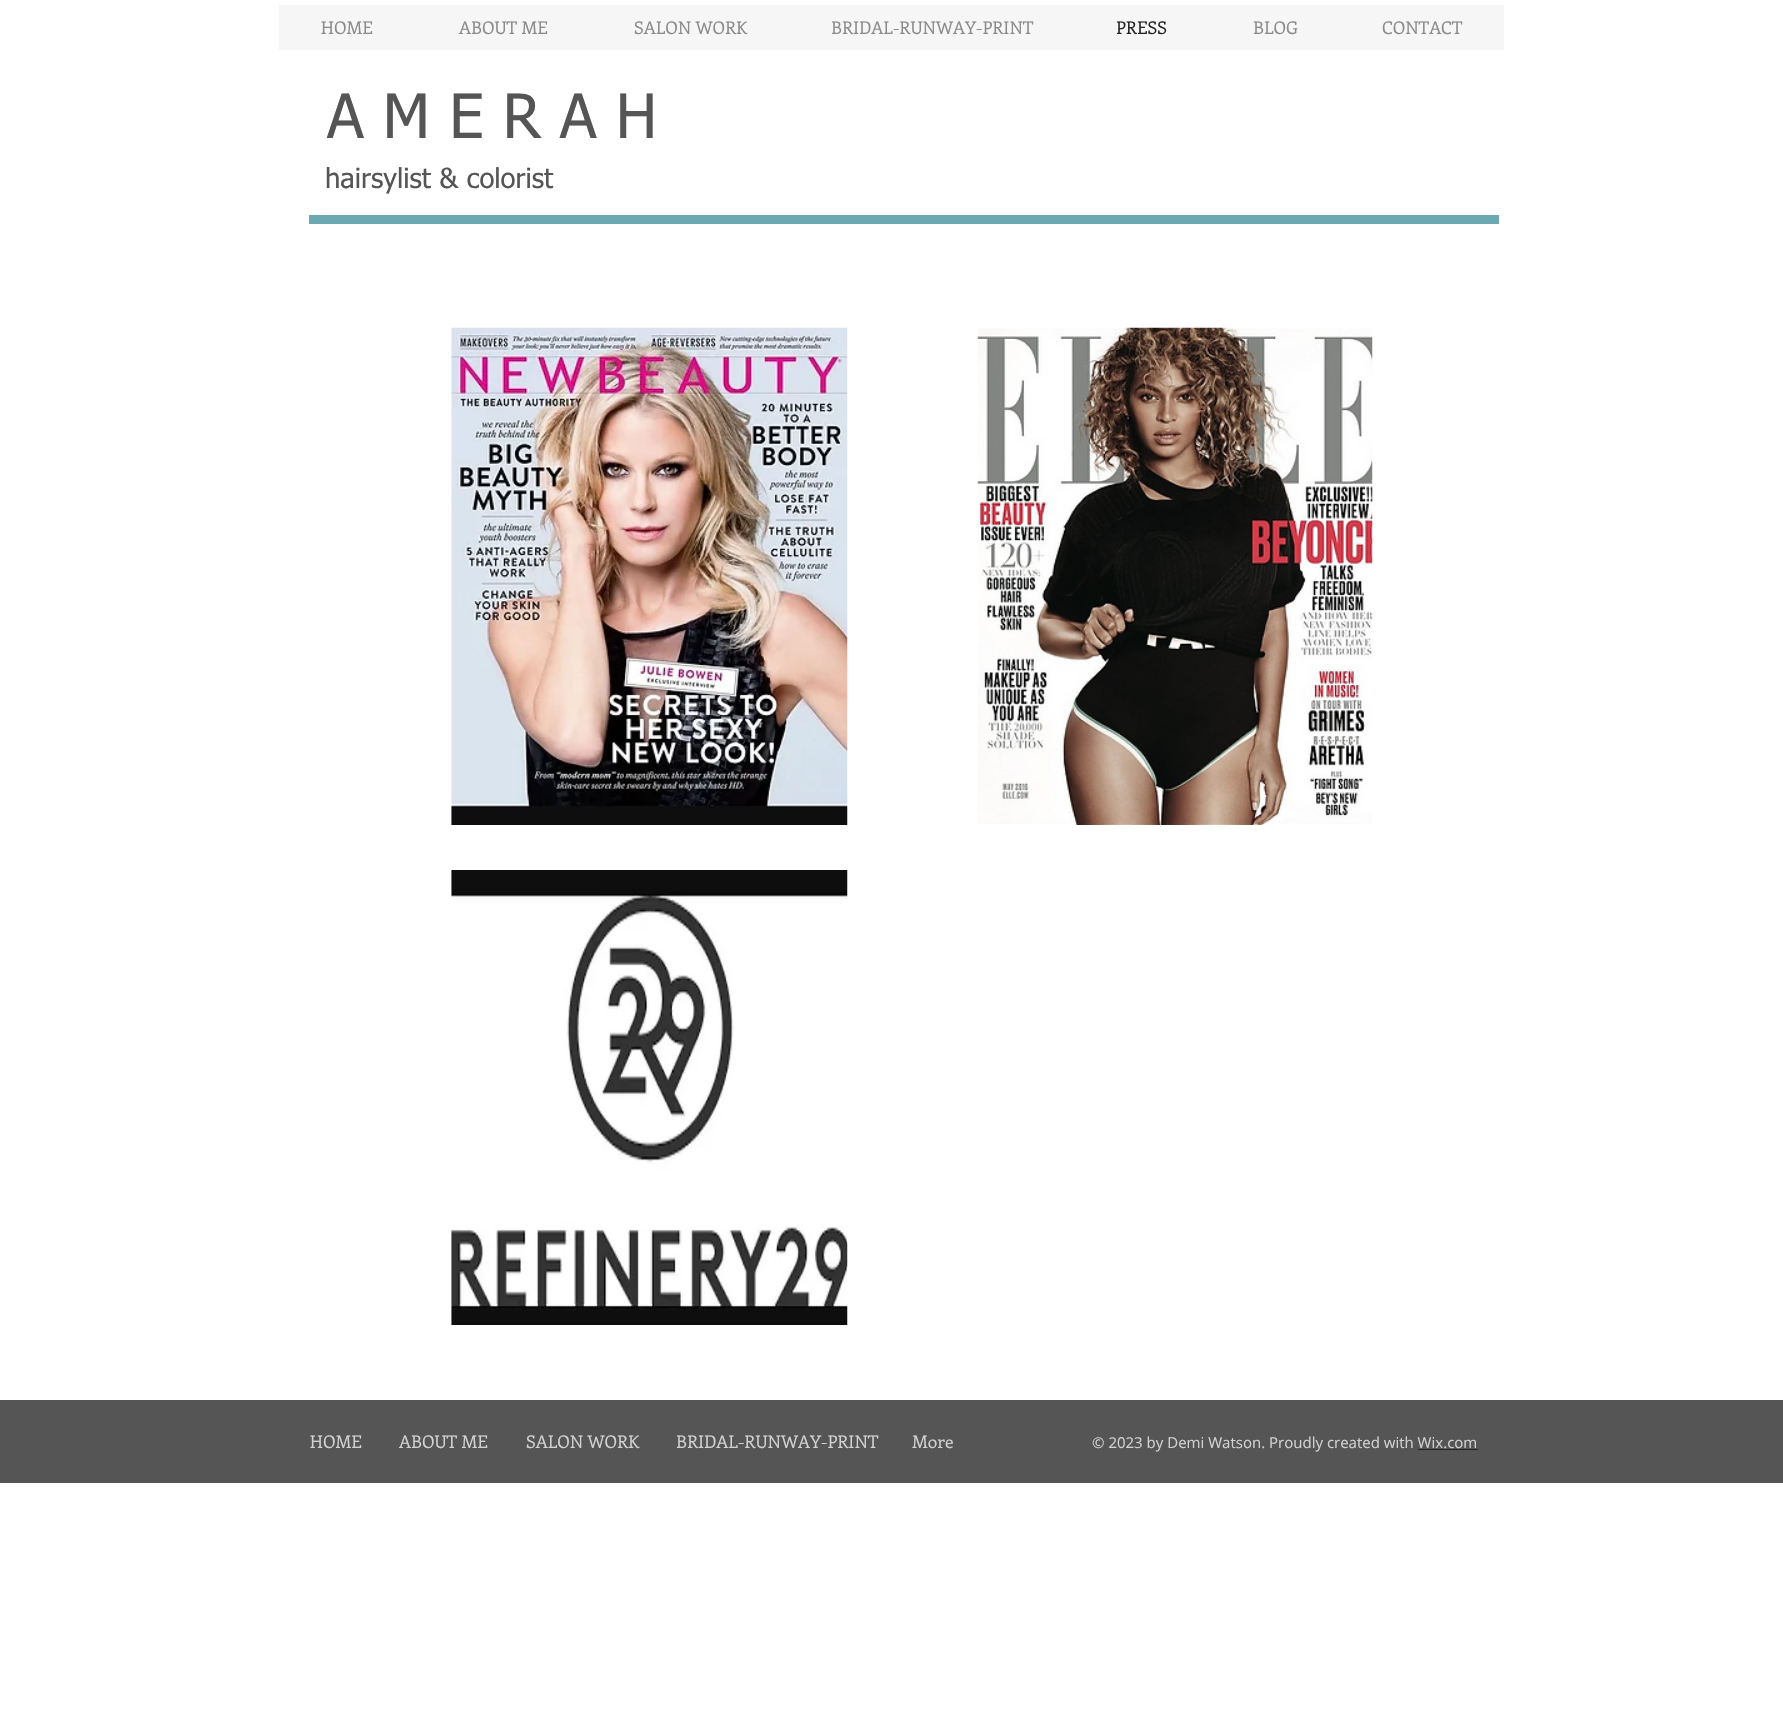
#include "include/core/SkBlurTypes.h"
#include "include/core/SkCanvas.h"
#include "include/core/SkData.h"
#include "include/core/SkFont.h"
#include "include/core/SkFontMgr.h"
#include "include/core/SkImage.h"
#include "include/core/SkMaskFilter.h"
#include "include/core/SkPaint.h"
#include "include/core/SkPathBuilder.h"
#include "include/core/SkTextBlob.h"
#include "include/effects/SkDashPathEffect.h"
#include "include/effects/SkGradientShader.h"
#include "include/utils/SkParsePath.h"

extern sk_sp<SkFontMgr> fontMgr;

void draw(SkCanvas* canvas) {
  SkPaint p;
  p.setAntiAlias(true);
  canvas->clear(SK_ColorWHITE);
  p.setColor(SkColorSetRGB(246, 246, 246));
  canvas->drawRect(SkRect::MakeLTRB(279, 5, 1504, 50), p);
  p.setColor(SkColorSetRGB(107, 168, 178));
  canvas->drawRect(SkRect::MakeLTRB(309, 215, 1499, 224), p);
  canvas->drawImageRect(SkImages::DeferredFromEncodedData(SkData::MakeFromFileName("images/1.png")), SkRect::MakeLTRB(451, 327, 848, 825), SkSamplingOptions());
  canvas->drawImageRect(SkImages::DeferredFromEncodedData(SkData::MakeFromFileName("images/2.png")), SkRect::MakeLTRB(977, 327, 1373, 825), SkSamplingOptions());
  canvas->drawImageRect(SkImages::DeferredFromEncodedData(SkData::MakeFromFileName("images/3.png")), SkRect::MakeLTRB(451, 870, 848, 1325), SkSamplingOptions());
  p.setColor(SkColorSetRGB(85, 85, 85));
  canvas->drawRect(SkRect::MakeLTRB(0, 1400, 1783, 1483), p);
  SkFont font1(fontMgr->matchFamilyStyle("Enriqueta", SkFontStyle::Normal()), 17.5f);
  font1.setSubpixel(true);
  p.setColor(SkColorSetRGB(139, 139, 139));
  canvas->drawString("HOME", 321, 34, font1, p);
  canvas->drawString("ABOUT ME", 459, 34, font1, p);
  canvas->drawString("SALON WORK", 634, 34, font1, p);
  canvas->drawString("BRIDAL-RUNWAY-PRINT", 831, 34, font1, p);
  p.setColor(SkColorSetRGB(36, 36, 36));
  canvas->drawString("PRESS", 1116, 34, font1, p);
  p.setColor(SkColorSetRGB(139, 139, 139));
  canvas->drawString("BLOG", 1253, 34, font1, p);
  canvas->drawString("CONTACT", 1382, 34, font1, p);
  SkFont font2(fontMgr->matchFamilyStyle("tahoma", SkFontStyle::Normal()), 61.25f);
  font2.setSubpixel(true);
  p.setColor(SkColorSetRGB(85, 85, 85));
  canvas->drawString("A M E R A H", 327, 138, font2, p);
  SkFont font3(fontMgr->matchFamilyStyle("tahoma", SkFontStyle::Normal()), 27.5f);
  font3.setSubpixel(true);
  canvas->drawString("hairsylist & colorist", 325, 188, font3, p);
  p.setColor(SkColorSetRGB(209, 209, 209));
  canvas->drawString("HOME", 310, 1448, font1, p);
  canvas->drawString("ABOUT ME", 399, 1448, font1, p);
  canvas->drawString("SALON WORK", 526, 1448, font1, p);
  canvas->drawString("BRIDAL-RUNWAY-PRINT", 676, 1448, font1, p);
  canvas->drawString("More", 912, 1448, font1, p);
  SkFont font4(fontMgr->matchFamilyStyle("Open Sans", SkFontStyle::Normal()), 15);
  font4.setSubpixel(true);
  canvas->drawString("© 2023 by Demi Watson. Proudly created with Wix.com", 1092, 1448, font4, p);
  p.setColor(SkColorSetRGB(36, 36, 36));
  canvas->drawRect(SkRect::MakeLTRB(1418, 1449, 1478, 1450), p);
}
